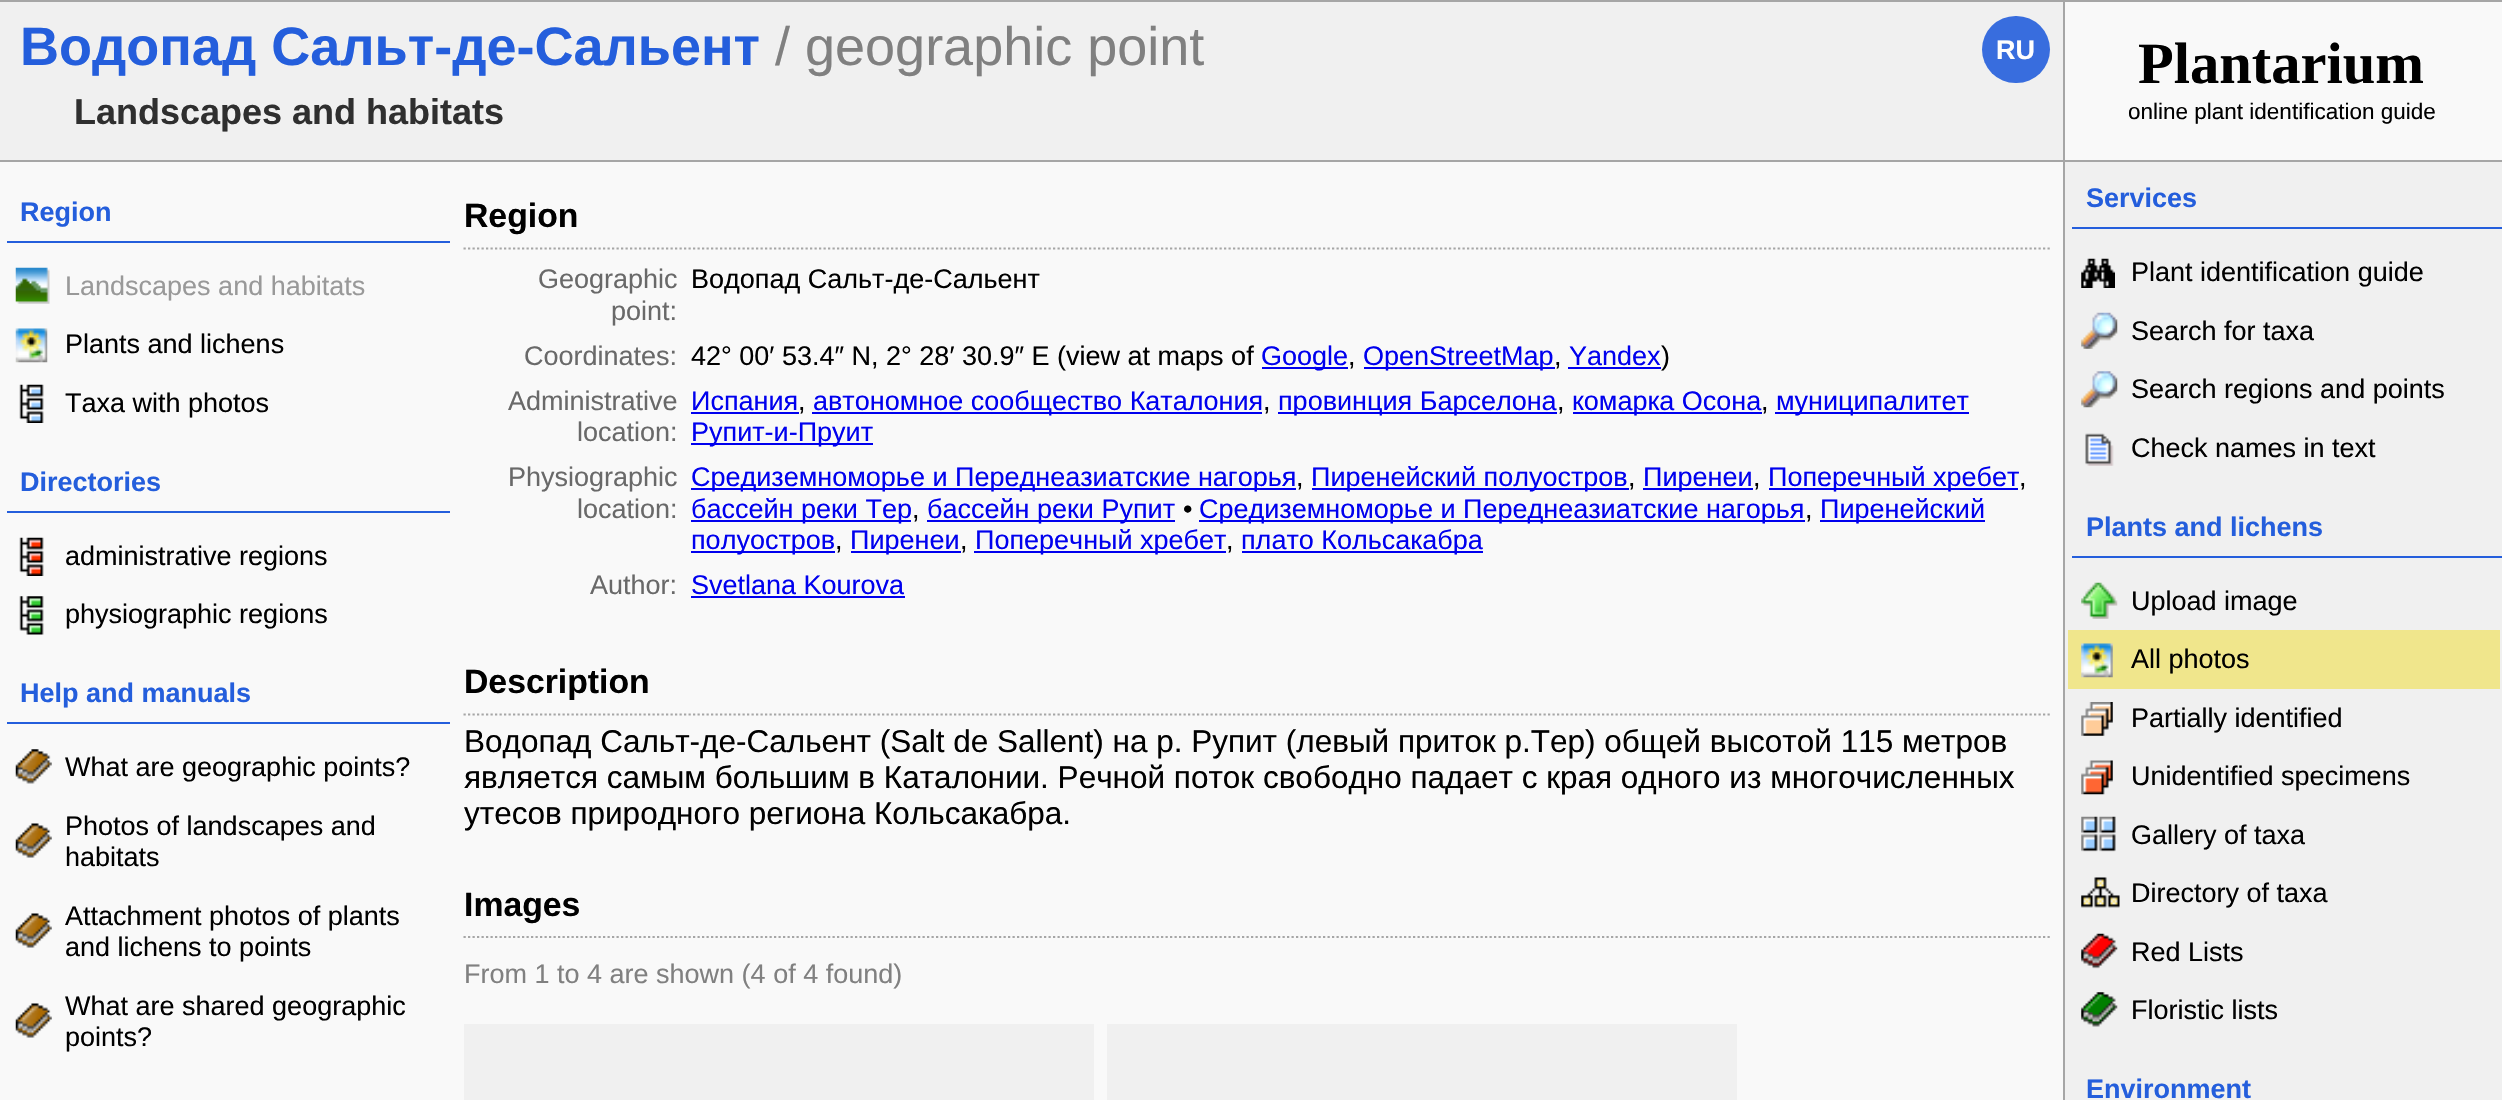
#include "include/core/SkBlurTypes.h"
#include "include/core/SkCanvas.h"
#include "include/core/SkData.h"
#include "include/core/SkFont.h"
#include "include/core/SkFontMgr.h"
#include "include/core/SkImage.h"
#include "include/core/SkMaskFilter.h"
#include "include/core/SkPaint.h"
#include "include/core/SkPathBuilder.h"
#include "include/core/SkTextBlob.h"
#include "include/effects/SkDashPathEffect.h"
#include "include/effects/SkGradientShader.h"
#include "include/utils/SkParsePath.h"

extern sk_sp<SkFontMgr> fontMgr;

void draw(SkCanvas* canvas) {
  SkPaint p;
  p.setAntiAlias(true);
  canvas->clear(SkColorSetRGB(249, 249, 249));
  p.setColor(SkColorSetRGB(240, 240, 240));
  canvas->drawRect(SkRect::MakeLTRB(0, 2, 2063, 160), p);
  p.setColor(SkColorSetRGB(56, 109, 222));
  canvas->drawRoundRect(SkRect::MakeLTRB(1982, 16, 2050, 83), 33.5f, 33.5f, p);
  p.setColor(SkColorSetRGB(166, 166, 166));
  canvas->drawRect(SkRect::MakeLTRB(0, 0, 2502, 2), p);
  canvas->drawRect(SkRect::MakeLTRB(0, 160, 2502, 162), p);
  canvas->drawRect(SkRect::MakeLTRB(2063, 0, 2065, 1100), p);
  p.setColor(SkColorSetRGB(36, 94, 220));
  canvas->drawRect(SkRect::MakeLTRB(7, 241, 450, 243), p);
  canvas->drawImageRect(SkImages::DeferredFromEncodedData(SkData::MakeFromFileName("images/1.png")), SkRect::MakeLTRB(15, 267, 50, 304), SkSamplingOptions());
  canvas->drawImageRect(SkImages::DeferredFromEncodedData(SkData::MakeFromFileName("images/2.png")), SkRect::MakeLTRB(15, 328, 48, 363), SkSamplingOptions());
  canvas->drawImageRect(SkImages::DeferredFromEncodedData(SkData::MakeFromFileName("images/3.png")), SkRect::MakeLTRB(19, 384, 44, 423), SkSamplingOptions());
  canvas->drawRect(SkRect::MakeLTRB(7, 511, 450, 513), p);
  canvas->drawImageRect(SkImages::DeferredFromEncodedData(SkData::MakeFromFileName("images/4.png")), SkRect::MakeLTRB(19, 537, 44, 576), SkSamplingOptions());
  canvas->drawImageRect(SkImages::DeferredFromEncodedData(SkData::MakeFromFileName("images/5.png")), SkRect::MakeLTRB(19, 596, 44, 635), SkSamplingOptions());
  canvas->drawRect(SkRect::MakeLTRB(7, 722, 450, 724), p);
  canvas->drawImageRect(SkImages::DeferredFromEncodedData(SkData::MakeFromFileName("images/6.png")), SkRect::MakeLTRB(15, 749, 52, 784), SkSamplingOptions());
  canvas->drawImageRect(SkImages::DeferredFromEncodedData(SkData::MakeFromFileName("images/7.png")), SkRect::MakeLTRB(15, 823, 52, 858), SkSamplingOptions());
  canvas->drawImageRect(SkImages::DeferredFromEncodedData(SkData::MakeFromFileName("images/8.png")), SkRect::MakeLTRB(15, 913, 52, 948), SkSamplingOptions());
  canvas->drawImageRect(SkImages::DeferredFromEncodedData(SkData::MakeFromFileName("images/8.png")), SkRect::MakeLTRB(15, 1003, 52, 1038), SkSamplingOptions());
  p.setStyle(SkPaint::kStroke_Style);
  p.setStrokeWidth(2.2f);
  p.setColor(SkColorSetRGB(166, 166, 166));
  p.setPathEffect(SkDashPathEffect::Make({{2.25f, 2.25f}}, 0));
  canvas->drawPath(SkPathBuilder().moveTo(463.5f, 248.5f).lineTo(2050, 248.5f).detach(), p);
  p.setPathEffect(nullptr);
  p.setStyle(SkPaint::kFill_Style);
  p.setColor(SkColorSetRGB(0, 0, 238));
  canvas->drawRect(SkRect::MakeLTRB(1262, 367, 1348, 369), p);
  canvas->drawRect(SkRect::MakeLTRB(1364, 367, 1555, 369), p);
  canvas->drawRect(SkRect::MakeLTRB(1568, 367, 1661, 369), p);
  canvas->drawRect(SkRect::MakeLTRB(691, 412, 799, 414), p);
  canvas->drawRect(SkRect::MakeLTRB(812, 412, 1262, 414), p);
  canvas->drawRect(SkRect::MakeLTRB(1278, 412, 1557, 414), p);
  canvas->drawRect(SkRect::MakeLTRB(1573, 412, 1762, 414), p);
  canvas->drawRect(SkRect::MakeLTRB(1775, 412, 1969, 414), p);
  canvas->drawRect(SkRect::MakeLTRB(691, 443, 873, 445), p);
  canvas->drawRect(SkRect::MakeLTRB(691, 488, 1296, 490), p);
  canvas->drawRect(SkRect::MakeLTRB(1312, 488, 1629, 490), p);
  canvas->drawRect(SkRect::MakeLTRB(1643, 488, 1753, 490), p);
  canvas->drawRect(SkRect::MakeLTRB(1769, 488, 2018, 490), p);
  canvas->drawRect(SkRect::MakeLTRB(691, 520, 911, 522), p);
  canvas->drawRect(SkRect::MakeLTRB(927, 520, 1175, 522), p);
  canvas->drawRect(SkRect::MakeLTRB(1199, 520, 1805, 522), p);
  canvas->drawRect(SkRect::MakeLTRB(1820, 520, 1985, 522), p);
  canvas->drawRect(SkRect::MakeLTRB(691, 551, 835, 553), p);
  canvas->drawRect(SkRect::MakeLTRB(851, 551, 961, 553), p);
  canvas->drawRect(SkRect::MakeLTRB(974, 551, 1226, 553), p);
  canvas->drawRect(SkRect::MakeLTRB(1242, 551, 1483, 553), p);
  canvas->drawRect(SkRect::MakeLTRB(691, 596, 905, 598), p);
  p.setStyle(SkPaint::kStroke_Style);
  p.setColor(SkColorSetRGB(166, 166, 166));
  p.setPathEffect(SkDashPathEffect::Make({{2.25f, 2.25f}}, 0));
  canvas->drawPath(SkPathBuilder().moveTo(463.5f, 714.5f).lineTo(2050, 714.5f).detach(), p);
  p.setPathEffect(nullptr);
  p.setPathEffect(SkDashPathEffect::Make({{2.25f, 2.25f}}, 0));
  canvas->drawPath(SkPathBuilder().moveTo(463.5f, 937).lineTo(2050, 937).detach(), p);
  p.setPathEffect(nullptr);
  p.setStyle(SkPaint::kFill_Style);
  p.setColor(SkColorSetRGB(240, 240, 240));
  canvas->drawRect(SkRect::MakeLTRB(464, 1024, 1094, 1100), p);
  canvas->drawRect(SkRect::MakeLTRB(1107, 1024, 1737, 1100), p);
  canvas->drawRect(SkRect::MakeLTRB(2065, 162, 2502, 1100), p);
  p.setColor(SkColorSetRGB(36, 94, 220));
  canvas->drawRect(SkRect::MakeLTRB(2072, 227, 2502, 229), p);
  canvas->drawImageRect(SkImages::DeferredFromEncodedData(SkData::MakeFromFileName("images/9.png")), SkRect::MakeLTRB(2081, 258, 2115, 288), SkSamplingOptions());
  canvas->drawImageRect(SkImages::DeferredFromEncodedData(SkData::MakeFromFileName("images/10.png")), SkRect::MakeLTRB(2081, 312, 2118, 349), SkSamplingOptions());
  canvas->drawImageRect(SkImages::DeferredFromEncodedData(SkData::MakeFromFileName("images/11.png")), SkRect::MakeLTRB(2081, 371, 2118, 408), SkSamplingOptions());
  canvas->drawImageRect(SkImages::DeferredFromEncodedData(SkData::MakeFromFileName("images/12.png")), SkRect::MakeLTRB(2085, 433, 2114, 466), SkSamplingOptions());
  canvas->drawRect(SkRect::MakeLTRB(2072, 556, 2502, 558), p);
  canvas->drawImageRect(SkImages::DeferredFromEncodedData(SkData::MakeFromFileName("images/13.png")), SkRect::MakeLTRB(2081, 582, 2118, 619), SkSamplingOptions());
  p.setColor(SkColorSetRGB(240, 230, 140));
  canvas->drawRect(SkRect::MakeLTRB(2068, 630, 2500, 689), p);
  canvas->drawImageRect(SkImages::DeferredFromEncodedData(SkData::MakeFromFileName("images/14.png")), SkRect::MakeLTRB(2081, 643, 2113, 678), SkSamplingOptions());
  canvas->drawImageRect(SkImages::DeferredFromEncodedData(SkData::MakeFromFileName("images/15.png")), SkRect::MakeLTRB(2081, 702, 2113, 736), SkSamplingOptions());
  canvas->drawImageRect(SkImages::DeferredFromEncodedData(SkData::MakeFromFileName("images/16.png")), SkRect::MakeLTRB(2081, 760, 2113, 795), SkSamplingOptions());
  canvas->drawImageRect(SkImages::DeferredFromEncodedData(SkData::MakeFromFileName("images/17.png")), SkRect::MakeLTRB(2081, 816, 2116, 852), SkSamplingOptions());
  canvas->drawImageRect(SkImages::DeferredFromEncodedData(SkData::MakeFromFileName("images/18.png")), SkRect::MakeLTRB(2081, 877, 2120, 908), SkSamplingOptions());
  canvas->drawImageRect(SkImages::DeferredFromEncodedData(SkData::MakeFromFileName("images/19.png")), SkRect::MakeLTRB(2081, 933, 2118, 969), SkSamplingOptions());
  canvas->drawImageRect(SkImages::DeferredFromEncodedData(SkData::MakeFromFileName("images/20.png")), SkRect::MakeLTRB(2081, 992, 2118, 1027), SkSamplingOptions());
  SkFont font1(fontMgr->matchFamilyStyle("Liberation Sans", SkFontStyle::Bold()), 54);
  font1.setSubpixel(true);
  p.setColor(SkColorSetRGB(36, 94, 220));
  canvas->drawString("Водопад Сальт-де-Сальент", 20, 65, font1, p);
  SkFont font2(fontMgr->matchFamilyStyle("Liberation Sans", SkFontStyle::Normal()), 54);
  font2.setSubpixel(true);
  p.setColor(SkColorSetRGB(128, 128, 128));
  canvas->drawString("/ geographic point", 775, 65, font2, p);
  SkFont font3(fontMgr->matchFamilyStyle("Liberation Sans", SkFontStyle::Bold()), 36);
  font3.setSubpixel(true);
  p.setColor(SkColorSetRGB(47, 47, 47));
  canvas->drawString("Landscapes and habitats", 74, 124, font3, p);
  SkFont font4(fontMgr->matchFamilyStyle("Liberation Sans", SkFontStyle::Bold()), 27);
  font4.setSubpixel(true);
  p.setColor(SkColorSetRGB(254, 254, 254));
  canvas->drawString("RU", 1996, 59, font4, p);
  SkFont font5(fontMgr->matchFamilyStyle("Liberation Serif", SkFontStyle::Bold()), 58.5f);
  font5.setSubpixel(true);
  p.setColor(SK_ColorBLACK);
  canvas->drawString("Plantarium", 2138, 83, font5, p);
  SkFont font6(fontMgr->matchFamilyStyle("Liberation Sans", SkFontStyle::Normal()), 22.5f);
  font6.setSubpixel(true);
  canvas->drawString("online plant identification guide", 2128, 119, font6, p);
  p.setColor(SkColorSetRGB(36, 94, 220));
  canvas->drawString("Region", 20, 221, font4, p);
  SkFont font7(fontMgr->matchFamilyStyle("Liberation Sans", SkFontStyle::Normal()), 27);
  font7.setSubpixel(true);
  p.setColor(SkColorSetRGB(153, 153, 153));
  canvas->drawString("Landscapes and habitats", 65, 295, font7, p);
  p.setColor(SK_ColorBLACK);
  canvas->drawString("Plants and lichens", 65, 353, font7, p);
  canvas->drawString("Taxa with photos", 65, 412, font7, p);
  p.setColor(SkColorSetRGB(36, 94, 220));
  canvas->drawString("Directories", 20, 491, font4, p);
  p.setColor(SK_ColorBLACK);
  canvas->drawString("administrative regions", 65, 565, font7, p);
  canvas->drawString("physiographic regions", 65, 623, font7, p);
  p.setColor(SkColorSetRGB(36, 94, 220));
  canvas->drawString("Help and manuals", 20, 702, font4, p);
  p.setColor(SK_ColorBLACK);
  canvas->drawString("What are geographic points?", 65, 776, font7, p);
  canvas->drawString("Photos of landscapes and", 65, 835, font7, p);
  canvas->drawString("habitats", 65, 866, font7, p);
  canvas->drawString("Attachment photos of plants", 65, 925, font7, p);
  canvas->drawString("and lichens to points", 65, 956, font7, p);
  canvas->drawString("What are shared geographic", 65, 1015, font7, p);
  canvas->drawString("points?", 65, 1046, font7, p);
  SkFont font8(fontMgr->matchFamilyStyle("Liberation Sans", SkFontStyle::Bold()), 33.75f);
  font8.setSubpixel(true);
  canvas->drawString("Region", 464, 227, font8, p);
  p.setColor(SkColorSetRGB(105, 105, 105));
  canvas->drawString("Geographic", 538, 288, font7, p);
  canvas->drawString("point:", 611, 320, font7, p);
  p.setColor(SK_ColorBLACK);
  canvas->drawString("Водопад Сальт-де-Сальент", 691, 288, font7, p);
  p.setColor(SkColorSetRGB(105, 105, 105));
  canvas->drawString("Coordinates:", 524, 365, font7, p);
  p.setColor(SK_ColorBLACK);
  canvas->drawString("42° 00′ 53.4″ N, 2° 28′ 30.9″ E (view at maps of", 691, 365, font7, p);
  p.setColor(SkColorSetRGB(0, 0, 238));
  canvas->drawString("Google", 1261, 365, font7, p);
  p.setColor(SK_ColorBLACK);
  canvas->drawString(",", 1348, 365, font7, p);
  p.setColor(SkColorSetRGB(0, 0, 238));
  canvas->drawString("OpenStreetMap", 1363, 365, font7, p);
  p.setColor(SK_ColorBLACK);
  canvas->drawString(",", 1554, 365, font7, p);
  p.setColor(SkColorSetRGB(0, 0, 238));
  canvas->drawString("Yandex", 1569, 365, font7, p);
  p.setColor(SK_ColorBLACK);
  canvas->drawString(")", 1661, 365, font7, p);
  p.setColor(SkColorSetRGB(105, 105, 105));
  canvas->drawString("Administrative", 508, 410, font7, p);
  canvas->drawString("location:", 577, 441, font7, p);
  p.setColor(SkColorSetRGB(0, 0, 238));
  canvas->drawString("Испания", 691, 410, font7, p);
  p.setColor(SK_ColorBLACK);
  canvas->drawString(",", 798, 410, font7, p);
  p.setColor(SkColorSetRGB(0, 0, 238));
  canvas->drawString("автономное сообщество Каталония", 813, 410, font7, p);
  p.setColor(SK_ColorBLACK);
  canvas->drawString(",", 1263, 410, font7, p);
  p.setColor(SkColorSetRGB(0, 0, 238));
  canvas->drawString("провинция Барселона", 1278, 410, font7, p);
  p.setColor(SK_ColorBLACK);
  canvas->drawString(",", 1557, 410, font7, p);
  p.setColor(SkColorSetRGB(0, 0, 238));
  canvas->drawString("комарка Осона", 1572, 410, font7, p);
  p.setColor(SK_ColorBLACK);
  canvas->drawString(",", 1761, 410, font7, p);
  p.setColor(SkColorSetRGB(0, 0, 238));
  canvas->drawString("муниципалитет", 1776, 410, font7, p);
  canvas->drawString("Рупит-и-Пруит", 691, 441, font7, p);
  p.setColor(SkColorSetRGB(105, 105, 105));
  canvas->drawString("Physiographic", 508, 486, font7, p);
  canvas->drawString("location:", 577, 518, font7, p);
  p.setColor(SkColorSetRGB(0, 0, 238));
  canvas->drawString("Средиземноморье и Переднеазиатские нагорья", 691, 486, font7, p);
  p.setColor(SK_ColorBLACK);
  canvas->drawString(",", 1296, 486, font7, p);
  p.setColor(SkColorSetRGB(0, 0, 238));
  canvas->drawString("Пиренейский полуостров", 1311, 486, font7, p);
  p.setColor(SK_ColorBLACK);
  canvas->drawString(",", 1628, 486, font7, p);
  p.setColor(SkColorSetRGB(0, 0, 238));
  canvas->drawString("Пиренеи", 1643, 486, font7, p);
  p.setColor(SK_ColorBLACK);
  canvas->drawString(",", 1753, 486, font7, p);
  p.setColor(SkColorSetRGB(0, 0, 238));
  canvas->drawString("Поперечный хребет", 1768, 486, font7, p);
  p.setColor(SK_ColorBLACK);
  canvas->drawString(",", 2019, 486, font7, p);
  p.setColor(SkColorSetRGB(0, 0, 238));
  canvas->drawString("бассейн реки Тер", 691, 518, font7, p);
  canvas->drawString("бассейн реки Рупит", 927, 518, font7, p);
  p.setColor(SK_ColorBLACK);
  canvas->drawString("•", 1183, 518, font7, p);
  p.setColor(SkColorSetRGB(0, 0, 238));
  canvas->drawString("Средиземноморье и Переднеазиатские нагорья", 1199, 518, font7, p);
  canvas->drawString("Пиренейский", 1820, 518, font7, p);
  p.setColor(SK_ColorBLACK);
  canvas->drawString(",", 912, 518, font7, p);
  canvas->drawString(",", 1805, 518, font7, p);
  p.setColor(SkColorSetRGB(0, 0, 238));
  canvas->drawString("полуостров", 691, 549, font7, p);
  p.setColor(SK_ColorBLACK);
  canvas->drawString(",", 835, 549, font7, p);
  p.setColor(SkColorSetRGB(0, 0, 238));
  canvas->drawString("Пиренеи", 850, 549, font7, p);
  p.setColor(SK_ColorBLACK);
  canvas->drawString(",", 960, 549, font7, p);
  p.setColor(SkColorSetRGB(0, 0, 238));
  canvas->drawString("Поперечный хребет", 975, 549, font7, p);
  p.setColor(SK_ColorBLACK);
  canvas->drawString(",", 1226, 549, font7, p);
  p.setColor(SkColorSetRGB(0, 0, 238));
  canvas->drawString("плато Кольсакабра", 1241, 549, font7, p);
  p.setColor(SkColorSetRGB(105, 105, 105));
  canvas->drawString("Author:", 590, 594, font7, p);
  p.setColor(SkColorSetRGB(0, 0, 238));
  canvas->drawString("Svetlana Kourova", 691, 594, font7, p);
  p.setColor(SK_ColorBLACK);
  canvas->drawString("Description", 464, 693, font8, p);
  SkFont font9(fontMgr->matchFamilyStyle("Liberation Sans", SkFontStyle::Normal()), 31.5f);
  font9.setSubpixel(true);
  canvas->drawString("Водопад Сальт-де-Сальент (Salt de Sallent) на р. Рупит (левый приток р.Тер) общей высотой 115 метров", 464, 752, font9, p);
  canvas->drawString("является самым большим в Каталонии. Речной поток свободно падает с края одного из многочисленных", 464, 788, font9, p);
  canvas->drawString("утесов природного региона Кольсакабра.", 464, 824, font9, p);
  canvas->drawString("Images", 464, 916, font8, p);
  p.setColor(SkColorSetRGB(128, 128, 128));
  canvas->drawString("From 1 to 4 are shown (4 of 4 found)", 464, 983, font7, p);
  p.setColor(SkColorSetRGB(36, 94, 220));
  canvas->drawString("Services", 2086, 207, font4, p);
  p.setColor(SK_ColorBLACK);
  canvas->drawString("Plant identification guide", 2131, 281, font7, p);
  canvas->drawString("Search for taxa", 2131, 340, font7, p);
  canvas->drawString("Search regions and points", 2131, 398, font7, p);
  canvas->drawString("Check names in text", 2131, 457, font7, p);
  p.setColor(SkColorSetRGB(36, 94, 220));
  canvas->drawString("Plants and lichens", 2086, 536, font4, p);
  p.setColor(SK_ColorBLACK);
  canvas->drawString("Upload image", 2131, 610, font7, p);
  canvas->drawString("All photos", 2131, 668, font7, p);
  canvas->drawString("Partially identified", 2131, 727, font7, p);
  canvas->drawString("Unidentified specimens", 2131, 785, font7, p);
  canvas->drawString("Gallery of taxa", 2131, 844, font7, p);
  canvas->drawString("Directory of taxa", 2131, 902, font7, p);
  canvas->drawString("Red Lists", 2131, 961, font7, p);
  canvas->drawString("Floristic lists", 2131, 1019, font7, p);
  p.setColor(SkColorSetRGB(36, 94, 220));
  canvas->drawString("Environment", 2086, 1098, font4, p);
}
